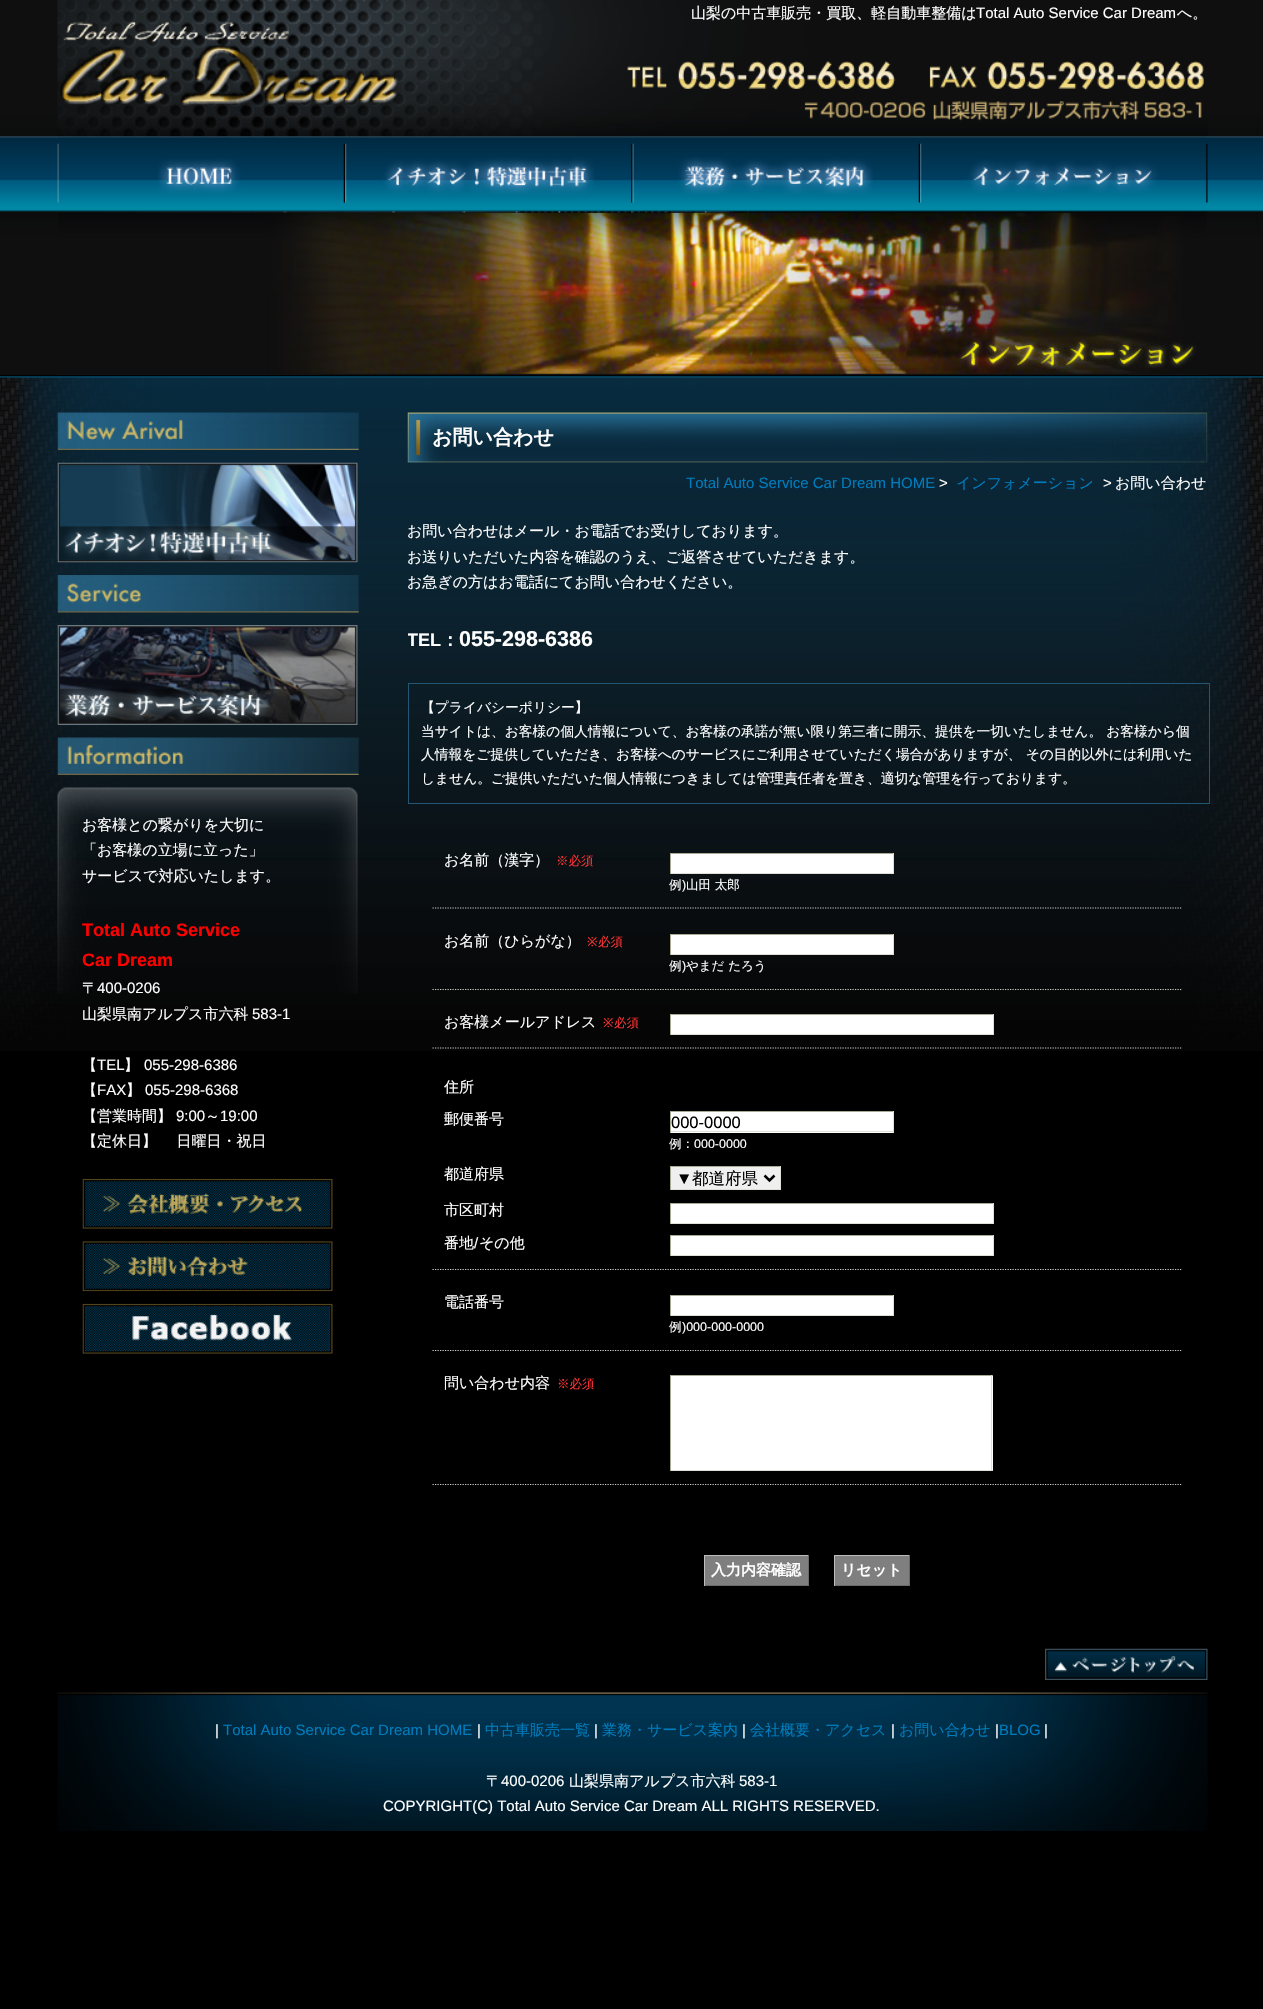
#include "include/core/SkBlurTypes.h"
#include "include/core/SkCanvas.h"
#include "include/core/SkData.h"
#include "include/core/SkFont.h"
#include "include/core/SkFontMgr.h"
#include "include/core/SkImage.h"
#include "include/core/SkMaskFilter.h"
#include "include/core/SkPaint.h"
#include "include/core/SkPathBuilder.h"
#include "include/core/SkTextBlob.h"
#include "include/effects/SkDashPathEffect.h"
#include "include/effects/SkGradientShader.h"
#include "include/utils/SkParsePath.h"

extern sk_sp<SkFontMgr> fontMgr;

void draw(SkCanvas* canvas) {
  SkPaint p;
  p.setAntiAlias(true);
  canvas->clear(SK_ColorBLACK);
  canvas->drawImageRect(SkImages::DeferredFromEncodedData(SkData::MakeFromFileName("images/1.png")), SkRect::MakeLTRB(0, 0, 1263, 1051), SkSamplingOptions());
  canvas->drawImageRect(SkImages::DeferredFromEncodedData(SkData::MakeFromFileName("images/2.png")), SkRect::MakeLTRB(57, 0, 1208, 138), SkSamplingOptions());
  canvas->drawImageRect(SkImages::DeferredFromEncodedData(SkData::MakeFromFileName("images/7.png")), SkRect::MakeLTRB(58, 212, 1207, 375), SkSamplingOptions());
  canvas->drawImageRect(SkImages::DeferredFromEncodedData(SkData::MakeFromFileName("images/3.png")), SkRect::MakeLTRB(57, 137, 345, 213), SkSamplingOptions());
  canvas->drawImageRect(SkImages::DeferredFromEncodedData(SkData::MakeFromFileName("images/4.png")), SkRect::MakeLTRB(345, 137, 633, 213), SkSamplingOptions());
  canvas->drawImageRect(SkImages::DeferredFromEncodedData(SkData::MakeFromFileName("images/5.png")), SkRect::MakeLTRB(632, 137, 920, 213), SkSamplingOptions());
  canvas->drawImageRect(SkImages::DeferredFromEncodedData(SkData::MakeFromFileName("images/6.png")), SkRect::MakeLTRB(920, 137, 1208, 213), SkSamplingOptions());
  canvas->drawImageRect(SkImages::DeferredFromEncodedData(SkData::MakeFromFileName("images/8.png")), SkRect::MakeLTRB(57, 412, 359, 450), SkSamplingOptions());
  canvas->drawImageRect(SkImages::DeferredFromEncodedData(SkData::MakeFromFileName("images/9.png")), SkRect::MakeLTRB(57, 462, 358, 563), SkSamplingOptions());
  canvas->drawImageRect(SkImages::DeferredFromEncodedData(SkData::MakeFromFileName("images/10.png")), SkRect::MakeLTRB(57, 575, 359, 613), SkSamplingOptions());
  canvas->drawImageRect(SkImages::DeferredFromEncodedData(SkData::MakeFromFileName("images/11.png")), SkRect::MakeLTRB(57, 625, 358, 725), SkSamplingOptions());
  canvas->drawImageRect(SkImages::DeferredFromEncodedData(SkData::MakeFromFileName("images/12.png")), SkRect::MakeLTRB(57, 737, 359, 775), SkSamplingOptions());
  canvas->drawImageRect(SkImages::DeferredFromEncodedData(SkData::MakeFromFileName("images/13.png")), SkRect::MakeLTRB(57, 787, 358, 994), SkSamplingOptions());
  canvas->drawImageRect(SkImages::DeferredFromEncodedData(SkData::MakeFromFileName("images/14.png")), SkRect::MakeLTRB(82, 1178, 333, 1229), SkSamplingOptions());
  canvas->drawImageRect(SkImages::DeferredFromEncodedData(SkData::MakeFromFileName("images/15.png")), SkRect::MakeLTRB(82, 1241, 333, 1292), SkSamplingOptions());
  canvas->drawImageRect(SkImages::DeferredFromEncodedData(SkData::MakeFromFileName("images/16.png")), SkRect::MakeLTRB(82, 1303, 333, 1354), SkSamplingOptions());
  canvas->drawImageRect(SkImages::DeferredFromEncodedData(SkData::MakeFromFileName("images/17.png")), SkRect::MakeLTRB(407, 412, 1208, 463), SkSamplingOptions());
  p.setStyle(SkPaint::kStroke_Style);
  p.setStrokeWidth(1);
  p.setColor(SkColorSetRGB(34, 87, 116));
  canvas->drawRect(SkRect::MakeLTRB(408.5f, 683.5f, 1209.5f, 803.5f), p);
  p.setStrokeWidth(1.2f);
  p.setColor(SkColorSetRGB(204, 204, 204));
  p.setPathEffect(SkDashPathEffect::Make({{1.25f, 1.25f}}, 0));
  canvas->drawPath(SkPathBuilder().moveTo(432.5f, 908).lineTo(1182.5f, 908).detach(), p);
  p.setPathEffect(nullptr);
  p.setStyle(SkPaint::kFill_Style);
  p.setColor(SK_ColorWHITE);
  canvas->drawRect(SkRect::MakeLTRB(671, 854, 893, 873), p);
  p.setColor(SkColorSetRGB(170, 170, 148));
  canvas->drawRect(SkRect::MakeLTRB(670, 853, 894, 854), p);
  p.setColor(SkColorSetRGB(223, 223, 214));
  canvas->drawRect(SkRect::MakeLTRB(893, 853, 894, 874), p);
  canvas->drawRect(SkRect::MakeLTRB(670, 873, 894, 874), p);
  p.setColor(SkColorSetRGB(170, 170, 148));
  canvas->drawRect(SkRect::MakeLTRB(670, 853, 671, 874), p);
  p.setStyle(SkPaint::kStroke_Style);
  p.setColor(SkColorSetRGB(204, 204, 204));
  p.setPathEffect(SkDashPathEffect::Make({{1.25f, 1.25f}}, 0));
  canvas->drawPath(SkPathBuilder().moveTo(432.5f, 989.5f).lineTo(1182.5f, 989.5f).detach(), p);
  p.setPathEffect(nullptr);
  p.setStyle(SkPaint::kFill_Style);
  p.setColor(SK_ColorWHITE);
  canvas->drawRect(SkRect::MakeLTRB(671, 935, 893, 954), p);
  p.setColor(SkColorSetRGB(170, 170, 148));
  canvas->drawRect(SkRect::MakeLTRB(670, 934, 894, 935), p);
  p.setColor(SkColorSetRGB(223, 223, 214));
  canvas->drawRect(SkRect::MakeLTRB(893, 934, 894, 955), p);
  canvas->drawRect(SkRect::MakeLTRB(670, 954, 894, 955), p);
  p.setColor(SkColorSetRGB(170, 170, 148));
  canvas->drawRect(SkRect::MakeLTRB(670, 934, 671, 955), p);
  p.setStyle(SkPaint::kStroke_Style);
  p.setColor(SkColorSetRGB(204, 204, 204));
  p.setPathEffect(SkDashPathEffect::Make({{1.25f, 1.25f}}, 0));
  canvas->drawPath(SkPathBuilder().moveTo(432.5f, 1048).lineTo(1182.5f, 1048).detach(), p);
  p.setPathEffect(nullptr);
  p.setStyle(SkPaint::kFill_Style);
  p.setColor(SK_ColorWHITE);
  canvas->drawRect(SkRect::MakeLTRB(671, 1015, 993, 1034), p);
  p.setColor(SkColorSetRGB(170, 170, 148));
  canvas->drawRect(SkRect::MakeLTRB(670, 1014, 994, 1015), p);
  p.setColor(SkColorSetRGB(223, 223, 214));
  canvas->drawRect(SkRect::MakeLTRB(993, 1014, 994, 1035), p);
  canvas->drawRect(SkRect::MakeLTRB(670, 1034, 994, 1035), p);
  p.setColor(SkColorSetRGB(170, 170, 148));
  canvas->drawRect(SkRect::MakeLTRB(670, 1014, 671, 1035), p);
  p.setStyle(SkPaint::kStroke_Style);
  p.setColor(SkColorSetRGB(204, 204, 204));
  p.setPathEffect(SkDashPathEffect::Make({{1.25f, 1.25f}}, 0));
  canvas->drawPath(SkPathBuilder().moveTo(432.5f, 1269.5f).lineTo(1182.5f, 1269.5f).detach(), p);
  p.setPathEffect(nullptr);
  p.setStyle(SkPaint::kFill_Style);
  p.setColor(SK_ColorWHITE);
  canvas->drawRect(SkRect::MakeLTRB(671, 1112, 893, 1133), p);
  p.setColor(SkColorSetRGB(170, 170, 148));
  canvas->drawRect(SkRect::MakeLTRB(670, 1111, 894, 1112), p);
  p.setColor(SkColorSetRGB(223, 223, 214));
  canvas->drawRect(SkRect::MakeLTRB(893, 1111, 894, 1133), p);
  canvas->drawRect(SkRect::MakeLTRB(670, 1131, 894, 1132), p);
  p.setColor(SkColorSetRGB(170, 170, 148));
  canvas->drawRect(SkRect::MakeLTRB(670, 1111, 671, 1133), p);
  p.setColor(SkColorSetRGB(239, 239, 239));
  canvas->drawRect(SkRect::MakeLTRB(671, 1167, 780, 1189), p);
  p.setColor(SkColorSetRGB(170, 170, 148));
  canvas->drawRect(SkRect::MakeLTRB(670, 1166, 781, 1167), p);
  p.setColor(SkColorSetRGB(223, 223, 214));
  canvas->drawRect(SkRect::MakeLTRB(780, 1166, 781, 1190), p);
  canvas->drawRect(SkRect::MakeLTRB(670, 1189, 781, 1190), p);
  p.setColor(SkColorSetRGB(170, 170, 148));
  canvas->drawRect(SkRect::MakeLTRB(670, 1166, 671, 1190), p);
  p.setStyle(SkPaint::kStroke_Style);
  p.setStrokeWidth(2.5f);
  p.setColor(SK_ColorBLACK);
  canvas->drawPath(SkPathBuilder().moveTo(764.5f, 1175.5f).lineTo(769.5f, 1180.5f).lineTo(774.5f, 1175.5f).detach(), p);
  p.setStyle(SkPaint::kFill_Style);
  p.setColor(SK_ColorWHITE);
  canvas->drawRect(SkRect::MakeLTRB(671, 1204, 993, 1223), p);
  p.setColor(SkColorSetRGB(170, 170, 148));
  canvas->drawRect(SkRect::MakeLTRB(670, 1203, 994, 1204), p);
  p.setColor(SkColorSetRGB(223, 223, 214));
  canvas->drawRect(SkRect::MakeLTRB(993, 1203, 994, 1224), p);
  canvas->drawRect(SkRect::MakeLTRB(670, 1223, 994, 1224), p);
  p.setColor(SkColorSetRGB(170, 170, 148));
  canvas->drawRect(SkRect::MakeLTRB(670, 1203, 671, 1224), p);
  p.setColor(SK_ColorWHITE);
  canvas->drawRect(SkRect::MakeLTRB(671, 1236, 993, 1255), p);
  p.setColor(SkColorSetRGB(170, 170, 148));
  canvas->drawRect(SkRect::MakeLTRB(670, 1235, 994, 1236), p);
  p.setColor(SkColorSetRGB(223, 223, 214));
  canvas->drawRect(SkRect::MakeLTRB(993, 1235, 994, 1256), p);
  canvas->drawRect(SkRect::MakeLTRB(670, 1255, 994, 1256), p);
  p.setColor(SkColorSetRGB(170, 170, 148));
  canvas->drawRect(SkRect::MakeLTRB(670, 1235, 671, 1256), p);
  p.setStyle(SkPaint::kStroke_Style);
  p.setStrokeWidth(1.2f);
  p.setColor(SkColorSetRGB(204, 204, 204));
  p.setPathEffect(SkDashPathEffect::Make({{1.25f, 1.25f}}, 0));
  canvas->drawPath(SkPathBuilder().moveTo(432.5f, 1350.5f).lineTo(1182.5f, 1350.5f).detach(), p);
  p.setPathEffect(nullptr);
  p.setStyle(SkPaint::kFill_Style);
  p.setColor(SK_ColorWHITE);
  canvas->drawRect(SkRect::MakeLTRB(671, 1296, 893, 1315), p);
  p.setColor(SkColorSetRGB(170, 170, 148));
  canvas->drawRect(SkRect::MakeLTRB(670, 1295, 894, 1296), p);
  p.setColor(SkColorSetRGB(223, 223, 214));
  canvas->drawRect(SkRect::MakeLTRB(893, 1295, 894, 1316), p);
  canvas->drawRect(SkRect::MakeLTRB(670, 1315, 894, 1316), p);
  p.setColor(SkColorSetRGB(170, 170, 148));
  canvas->drawRect(SkRect::MakeLTRB(670, 1295, 671, 1316), p);
  p.setStyle(SkPaint::kStroke_Style);
  p.setColor(SkColorSetRGB(204, 204, 204));
  p.setPathEffect(SkDashPathEffect::Make({{1.25f, 1.25f}}, 0));
  canvas->drawPath(SkPathBuilder().moveTo(432.5f, 1484.5f).lineTo(1182.5f, 1484.5f).detach(), p);
  p.setPathEffect(nullptr);
  p.setStyle(SkPaint::kFill_Style);
  p.setColor(SK_ColorWHITE);
  canvas->drawRect(SkRect::MakeLTRB(671, 1376, 993, 1470), p);
  p.setColor(SkColorSetRGB(170, 170, 148));
  canvas->drawRect(SkRect::MakeLTRB(670, 1375, 993, 1376), p);
  p.setColor(SkColorSetRGB(223, 223, 214));
  canvas->drawRect(SkRect::MakeLTRB(991, 1375, 992, 1471), p);
  canvas->drawRect(SkRect::MakeLTRB(670, 1470, 993, 1471), p);
  p.setColor(SkColorSetRGB(170, 170, 148));
  canvas->drawRect(SkRect::MakeLTRB(670, 1375, 671, 1471), p);
  p.setColor(SkColorSetRGB(127, 127, 127));
  canvas->drawRect(SkRect::MakeLTRB(705, 1556, 808, 1585), p);
  p.setColor(SkColorSetRGB(189, 189, 189));
  canvas->drawRect(SkRect::MakeLTRB(704, 1555, 809, 1556), p);
  p.setColor(SkColorSetRGB(105, 105, 105));
  canvas->drawRect(SkRect::MakeLTRB(808, 1555, 809, 1586), p);
  canvas->drawRect(SkRect::MakeLTRB(704, 1585, 809, 1586), p);
  p.setColor(SkColorSetRGB(189, 189, 189));
  canvas->drawRect(SkRect::MakeLTRB(704, 1555, 705, 1586), p);
  p.setColor(SkColorSetRGB(127, 127, 127));
  canvas->drawRect(SkRect::MakeLTRB(835, 1556, 909, 1585), p);
  p.setColor(SkColorSetRGB(189, 189, 189));
  canvas->drawRect(SkRect::MakeLTRB(834, 1555, 910, 1556), p);
  p.setColor(SkColorSetRGB(105, 105, 105));
  canvas->drawRect(SkRect::MakeLTRB(909, 1555, 910, 1586), p);
  canvas->drawRect(SkRect::MakeLTRB(834, 1585, 910, 1586), p);
  p.setColor(SkColorSetRGB(189, 189, 189));
  canvas->drawRect(SkRect::MakeLTRB(834, 1555, 835, 1586), p);
  canvas->drawImageRect(SkImages::DeferredFromEncodedData(SkData::MakeFromFileName("images/18.png")), SkRect::MakeLTRB(1045, 1648, 1208, 1680), SkSamplingOptions());
  canvas->drawImageRect(SkImages::DeferredFromEncodedData(SkData::MakeFromFileName("images/19.png")), SkRect::MakeLTRB(57, 1692, 1208, 1831), SkSamplingOptions());
  SkFont font1(fontMgr->matchFamilyStyle("WenQuanYi Zen Hei", SkFontStyle(500, SkFontStyle::kNormal_Width, SkFontStyle::kUpright_Slant)), 15);
  font1.setSubpixel(true);
  p.setColor(SK_ColorWHITE);
  canvas->drawString("山梨の中古車販売・買取、軽自動車整備は", 691, 18, font1, p);
  SkFont font2(fontMgr->matchFamilyStyle("Liberation Sans", SkFontStyle::Normal()), 15);
  font2.setSubpixel(true);
  canvas->drawString("Total Auto Service Car Dream", 976, 18, font2, p);
  canvas->drawString("へ。", 1177, 18, font1, p);
  canvas->drawString("お客様との繋がりを大切に", 82, 830, font1, p);
  canvas->drawString("「お客様の立場に立った」", 82, 855, font1, p);
  canvas->drawString("サービスで対応いたします。", 82, 881, font1, p);
  SkFont font3(fontMgr->matchFamilyStyle("Liberation Sans", SkFontStyle::Bold()), 18);
  font3.setSubpixel(true);
  p.setColor(SkColorSetRGB(255, 0, 0));
  canvas->drawString("Total Auto Service", 82, 936, font3, p);
  canvas->drawString("Car Dream", 82, 966, font3, p);
  p.setColor(SK_ColorWHITE);
  canvas->drawString("〒", 82, 993, font1, p);
  canvas->drawString("400-0206", 97, 993, font2, p);
  canvas->drawString("山梨県南アルプス市六科", 82, 1019, font1, p);
  canvas->drawString("583-1", 252, 1019, font2, p);
  canvas->drawString("【", 82, 1070, font1, p);
  canvas->drawString("TEL", 97, 1070, font2, p);
  canvas->drawString("】", 124, 1070, font1, p);
  canvas->drawString("055-298-6386", 144, 1070, font2, p);
  canvas->drawString("【", 82, 1095, font1, p);
  canvas->drawString("FAX", 97, 1095, font2, p);
  canvas->drawString("】", 126, 1095, font1, p);
  canvas->drawString("055-298-6368", 145, 1095, font2, p);
  canvas->drawString("【営業時間】", 82, 1121, font1, p);
  canvas->drawString("9:00", 176, 1121, font2, p);
  canvas->drawString("～", 205, 1121, font1, p);
  canvas->drawString("19:00", 220, 1121, font2, p);
  canvas->drawString("【定休日】 　日曜日・祝日", 82, 1146, font1, p);
  SkFont font4(fontMgr->matchFamilyStyle("WenQuanYi Zen Hei", SkFontStyle::Bold()), 20);
  font4.setSubpixel(true);
  canvas->drawString("お問い合わせ", 432, 444, font4, p);
  p.setColor(SkColorSetRGB(0, 123, 187));
  canvas->drawString("Total Auto Service Car Dream HOME", 686, 488, font2, p);
  p.setColor(SK_ColorWHITE);
  canvas->drawString(">", 939, 488, font2, p);
  p.setColor(SkColorSetRGB(0, 123, 187));
  canvas->drawString("インフォメーション", 956, 488, font1, p);
  p.setColor(SK_ColorWHITE);
  canvas->drawString(">", 1103, 488, font2, p);
  canvas->drawString("お問い合わせ", 1115, 488, font1, p);
  canvas->drawString("お問い合わせはメール・お電話でお受けしております。", 407, 536, font1, p);
  canvas->drawString("お送りいただいた内容を確認のうえ、ご返答させていただきます。", 407, 562, font1, p);
  canvas->drawString("お急ぎの方はお電話にてお問い合わせください。", 407, 587, font1, p);
  canvas->save();
  canvas->clipRect(SkRect::MakeLTRB(408, 519, 1208, 658));
  canvas->drawString("TEL", 407, 646, font3, p);
  canvas->restore();
  SkFont font5(fontMgr->matchFamilyStyle("WenQuanYi Zen Hei", SkFontStyle::Bold()), 18);
  font5.setSubpixel(true);
  canvas->drawString("：", 441, 646, font5, p);
  SkFont font6(fontMgr->matchFamilyStyle("Liberation Sans", SkFontStyle::Bold()), 21.5f);
  font6.setSubpixel(true);
  canvas->drawString("055-298-6386", 459, 646, font6, p);
  SkFont font7(fontMgr->matchFamilyStyle("WenQuanYi Zen Hei", SkFontStyle(500, SkFontStyle::kNormal_Width, SkFontStyle::kUpright_Slant)), 13.75f);
  font7.setSubpixel(true);
  canvas->drawString("【プライバシーポリシー】", 421, 712, font7, p);
  canvas->drawString("当サイトは、お客様の個人情報について、お客様の承諾が無い限り第三者に開示、提供を一切いたしません。 お客様から個", 421, 736, font7, p);
  canvas->drawString("人情報をご提供していただき、お客様へのサービスにご利用させていただく場合がありますが、 その目的以外には利用いた", 421, 759, font7, p);
  canvas->drawString("しません。ご提供いただいた個人情報につきましては管理責任者を置き、適切な管理を行っております。", 421, 783, font7, p);
  canvas->drawString("お名前（漢字）", 444, 865, font1, p);
  SkFont font8(fontMgr->matchFamilyStyle("WenQuanYi Zen Hei", SkFontStyle(500, SkFontStyle::kNormal_Width, SkFontStyle::kUpright_Slant)), 12.5f);
  font8.setSubpixel(true);
  p.setColor(SkColorSetRGB(255, 51, 51));
  canvas->drawString("※必須", 556, 865, font8, p);
  p.setColor(SK_ColorWHITE);
  canvas->drawString("例", 669, 889, font8, p);
  SkFont font9(fontMgr->matchFamilyStyle("Liberation Sans", SkFontStyle::Normal()), 12.5f);
  font9.setSubpixel(true);
  canvas->drawString(")", 682, 889, font9, p);
  canvas->drawString("山田 太郎", 686, 889, font8, p);
  canvas->drawString("お名前（ひらがな）", 444, 946, font1, p);
  SkFont font10(fontMgr->matchFamilyStyle("Noto Sans", SkFontStyle::Normal()), 12.5f);
  font10.setSubpixel(true);
  p.setColor(SkColorSetRGB(255, 51, 51));
  canvas->drawString("※", 587, 946, font10, p);
  canvas->drawString("必須", 598, 946, font8, p);
  p.setColor(SK_ColorWHITE);
  canvas->drawString("例", 669, 970, font8, p);
  canvas->drawString(")", 682, 970, font9, p);
  canvas->drawString("やまだ たろう", 686, 970, font8, p);
  canvas->drawString("お客様メールアドレス", 444, 1027, font1, p);
  p.setColor(SkColorSetRGB(255, 51, 51));
  canvas->drawString("※", 603, 1027, font10, p);
  canvas->drawString("必須", 614, 1027, font8, p);
  p.setColor(SK_ColorWHITE);
  canvas->drawString("住所", 444, 1092, font1, p);
  canvas->drawString("郵便番号", 444, 1124, font1, p);
  SkFont font11(fontMgr->matchFamilyStyle("Liberation Sans", SkFontStyle::Normal()), 16.5f);
  font11.setSubpixel(true);
  p.setColor(SK_ColorBLACK);
  canvas->drawString("000-0000", 671, 1128, font11, p);
  p.setColor(SK_ColorWHITE);
  canvas->drawString("例：", 669, 1148, font8, p);
  canvas->drawString("000-0000", 694, 1148, font9, p);
  canvas->drawString("都道府県", 444, 1179, font1, p);
  p.setColor(SK_ColorBLACK);
  canvas->drawString("▼", 676, 1184, font11, p);
  SkFont font12(fontMgr->matchFamilyStyle("WenQuanYi Zen Hei", SkFontStyle(500, SkFontStyle::kNormal_Width, SkFontStyle::kUpright_Slant)), 16.5f);
  font12.setSubpixel(true);
  canvas->drawString("都道府県", 692, 1184, font12, p);
  p.setColor(SK_ColorWHITE);
  canvas->drawString("市区町村", 444, 1215, font1, p);
  canvas->drawString("番地", 444, 1248, font1, p);
  canvas->drawString("/", 474, 1248, font2, p);
  canvas->drawString("その他", 479, 1248, font1, p);
  canvas->drawString("電話番号", 444, 1307, font1, p);
  canvas->drawString("例", 669, 1331, font8, p);
  canvas->drawString(")000-000-0000", 682, 1331, font9, p);
  canvas->drawString("問い合わせ内容", 444, 1388, font1, p);
  p.setColor(SkColorSetRGB(255, 51, 51));
  canvas->drawString("※必須", 557, 1388, font8, p);
  SkFont font13(fontMgr->matchFamilyStyle("WenQuanYi Zen Hei", SkFontStyle::Bold()), 15);
  font13.setSubpixel(true);
  p.setColor(SK_ColorWHITE);
  canvas->drawString("入力内容確認", 711, 1575, font13, p);
  canvas->drawString("リセット", 841, 1575, font13, p);
  canvas->drawString("|", 215, 1735, font2, p);
  p.setColor(SkColorSetRGB(0, 123, 187));
  canvas->drawString("Total Auto Service Car Dream HOME", 223, 1735, font2, p);
  p.setColor(SK_ColorWHITE);
  canvas->drawString("|", 477, 1735, font2, p);
  p.setColor(SkColorSetRGB(0, 123, 187));
  canvas->drawString("中古車販売一覧", 485, 1735, font1, p);
  p.setColor(SK_ColorWHITE);
  canvas->drawString("|", 594, 1735, font2, p);
  p.setColor(SkColorSetRGB(0, 123, 187));
  canvas->drawString("業務・サービス案内", 602, 1735, font1, p);
  p.setColor(SK_ColorWHITE);
  canvas->drawString("|", 742, 1735, font2, p);
  p.setColor(SkColorSetRGB(0, 123, 187));
  canvas->drawString("会社概要・アクセス", 750, 1735, font1, p);
  p.setColor(SK_ColorWHITE);
  canvas->drawString("|", 891, 1735, font2, p);
  p.setColor(SkColorSetRGB(0, 123, 187));
  canvas->drawString("お問い合わせ", 899, 1735, font1, p);
  p.setColor(SK_ColorWHITE);
  canvas->drawString("|", 995, 1735, font2, p);
  p.setColor(SkColorSetRGB(0, 123, 187));
  canvas->drawString("BLOG", 999, 1735, font2, p);
  p.setColor(SK_ColorWHITE);
  canvas->drawString("|", 1044, 1735, font2, p);
  canvas->drawString("〒", 486, 1786, font1, p);
  canvas->drawString("400-0206", 501, 1786, font2, p);
  canvas->drawString("山梨県南アルプス市六科", 569, 1786, font1, p);
  canvas->drawString("583-1", 739, 1786, font2, p);
  canvas->drawString("COPYRIGHT(C) Total Auto Service Car Dream ALL RIGHTS RESERVED.", 383, 1811, font2, p);
}
